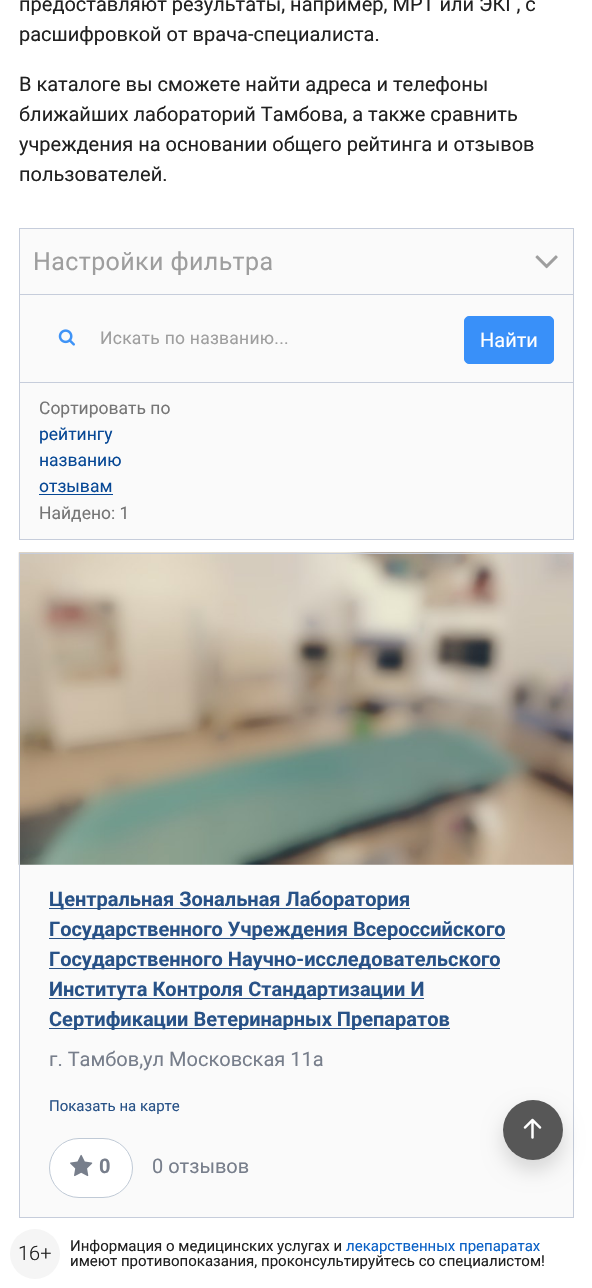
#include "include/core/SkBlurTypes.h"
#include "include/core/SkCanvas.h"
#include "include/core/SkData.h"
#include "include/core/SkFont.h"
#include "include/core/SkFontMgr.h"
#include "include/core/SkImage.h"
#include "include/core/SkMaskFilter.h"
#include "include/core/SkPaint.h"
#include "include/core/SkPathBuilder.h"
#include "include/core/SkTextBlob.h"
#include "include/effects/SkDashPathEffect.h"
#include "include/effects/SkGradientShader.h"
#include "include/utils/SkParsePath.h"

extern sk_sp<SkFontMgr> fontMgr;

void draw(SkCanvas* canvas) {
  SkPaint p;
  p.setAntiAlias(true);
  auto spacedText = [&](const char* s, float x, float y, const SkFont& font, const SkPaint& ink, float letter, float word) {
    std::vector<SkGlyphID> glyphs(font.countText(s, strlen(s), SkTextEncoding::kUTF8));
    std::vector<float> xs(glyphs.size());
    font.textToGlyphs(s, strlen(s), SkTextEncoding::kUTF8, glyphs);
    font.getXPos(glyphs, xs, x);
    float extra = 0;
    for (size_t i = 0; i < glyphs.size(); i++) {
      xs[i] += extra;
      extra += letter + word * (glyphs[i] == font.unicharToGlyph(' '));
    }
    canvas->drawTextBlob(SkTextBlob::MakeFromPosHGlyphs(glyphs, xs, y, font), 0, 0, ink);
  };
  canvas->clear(SK_ColorWHITE);
  p.setColor(SkColorSetRGB(250, 250, 250));
  canvas->drawRect(SkRect::MakeLTRB(20, 229, 573, 294), p);
  p.setColor(SkColorSetRGB(198, 205, 219));
  canvas->drawRect(SkRect::MakeLTRB(19, 228, 574, 229), p);
  canvas->drawRect(SkRect::MakeLTRB(573, 228, 574, 294), p);
  canvas->drawRect(SkRect::MakeLTRB(19, 228, 20, 294), p);
  canvas->drawImageRect(SkImages::DeferredFromEncodedData(SkData::MakeFromFileName("images/1.png")), SkRect::MakeLTRB(535, 255, 558, 269), SkSamplingOptions());
  p.setColor(SkColorSetRGB(250, 250, 250));
  canvas->drawRect(SkRect::MakeLTRB(19.5f, 294.5f, 573.5f, 382.5f), p);
  p.setStyle(SkPaint::kStroke_Style);
  p.setStrokeWidth(1);
  p.setColor(SkColorSetRGB(198, 205, 219));
  canvas->drawRect(SkRect::MakeLTRB(19.5f, 294.5f, 573.5f, 382.5f), p);
  canvas->drawImageRect(SkImages::DeferredFromEncodedData(SkData::MakeFromFileName("images/2.png")), SkRect::MakeLTRB(58, 329, 75, 346), SkSamplingOptions());
  p.setStyle(SkPaint::kFill_Style);
  p.setColor(SkColorSetRGB(57, 144, 249));
  canvas->drawRoundRect(SkRect::MakeLTRB(464.5f, 316.5f, 553.5f, 363.5f), 4.5f, 4.5f, p);
  p.setStyle(SkPaint::kStroke_Style);
  canvas->drawRoundRect(SkRect::MakeLTRB(464.5f, 316.5f, 553.5f, 363.5f), 4.5f, 4.5f, p);
  p.setStyle(SkPaint::kFill_Style);
  p.setColor(SkColorSetRGB(250, 250, 250));
  canvas->drawRect(SkRect::MakeLTRB(20, 383, 573, 539), p);
  p.setColor(SkColorSetRGB(198, 205, 219));
  canvas->drawRect(SkRect::MakeLTRB(573, 383, 574, 540), p);
  canvas->drawRect(SkRect::MakeLTRB(19, 539, 574, 540), p);
  canvas->drawRect(SkRect::MakeLTRB(19, 383, 20, 540), p);
  p.setColor(SkColorSetRGB(7, 72, 149));
  canvas->drawRect(SkRect::MakeLTRB(39, 494, 113, 495), p);
  p.setColor(SkColorSetRGB(250, 250, 250));
  canvas->drawRect(SkRect::MakeLTRB(20, 864, 573, 1217), p);
  canvas->drawImageRect(SkImages::DeferredFromEncodedData(SkData::MakeFromFileName("images/3.png")), SkRect::MakeLTRB(18, 552, 574, 865), SkSamplingOptions());
  p.setStyle(SkPaint::kStroke_Style);
  p.setColor(SkColorSetRGB(198, 205, 219));
  canvas->drawRect(SkRect::MakeLTRB(19.5f, 553.5f, 573.5f, 1217.5f), p);
  p.setStyle(SkPaint::kFill_Style);
  p.setColor(SkColorSetRGB(40, 82, 135));
  canvas->drawRect(SkRect::MakeLTRB(49, 908, 410, 909), p);
  canvas->drawRect(SkRect::MakeLTRB(49, 938, 505, 939), p);
  canvas->drawRect(SkRect::MakeLTRB(49, 968, 500, 969), p);
  canvas->drawRect(SkRect::MakeLTRB(49, 998, 424, 999), p);
  canvas->drawRect(SkRect::MakeLTRB(49, 1028, 450, 1029), p);
  p.setColor(SK_ColorWHITE);
  canvas->drawRoundRect(SkRect::MakeLTRB(49.5f, 1138.5f, 132.5f, 1197.5f), 29.5f, 29.5f, p);
  p.setStyle(SkPaint::kStroke_Style);
  p.setColor(SkColorSetRGB(192, 202, 214));
  canvas->drawRoundRect(SkRect::MakeLTRB(49.5f, 1138.5f, 132.5f, 1197.5f), 29.5f, 29.5f, p);
  canvas->drawImageRect(SkImages::DeferredFromEncodedData(SkData::MakeFromFileName("images/4.png")), SkRect::MakeLTRB(70, 1154, 93, 1177), SkSamplingOptions());
  canvas->save();
  canvas->clipPath(SkPathBuilder(SkPathFillType::kEvenOdd).moveTo(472, 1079).lineTo(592, 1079).lineTo(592, 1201).lineTo(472, 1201).close().moveTo(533, 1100).cubicTo(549.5f, 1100, 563, 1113.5f, 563, 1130).cubicTo(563, 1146.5f, 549.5f, 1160, 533, 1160).cubicTo(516.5f, 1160, 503, 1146.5f, 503, 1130).cubicTo(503, 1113.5f, 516.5f, 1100, 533, 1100).close().detach(), true);
  p.setStyle(SkPaint::kFill_Style);
  p.setColor(SkColorSetARGB(38, 0, 0, 0));
  p.setMaskFilter(SkMaskFilter::MakeBlur(kNormal_SkBlurStyle, 10));
  canvas->drawRoundRect(SkRect::MakeLTRB(503, 1110, 563, 1170), 30, 30, p);
  p.setMaskFilter(nullptr);
  canvas->restore();
  p.setColor(SkColorSetARGB(166, 0, 0, 0));
  canvas->drawCircle(533, 1130, 30, p);
  canvas->drawImageRect(SkImages::DeferredFromEncodedData(SkData::MakeFromFileName("images/5.png")), SkRect::MakeLTRB(523, 1118, 542, 1139), SkSamplingOptions());
  p.setColor(SkColorSetRGB(245, 245, 245));
  canvas->drawCircle(35, 1254, 25, p);
  SkFont font1(fontMgr->matchFamilyStyle("Roboto", SkFontStyle::Normal()), 20);
  font1.setSubpixel(true);
  p.setColor(SkColorSetRGB(33, 33, 33));
  canvas->drawString("предоставляют результаты, например, МРТ или ЭКГ, с", 19, 11, font1, p);
  canvas->drawString("расшифровкой от врача-специалиста.", 19, 41, font1, p);
  canvas->drawString("В каталоге вы сможете найти адреса и телефоны", 19, 91, font1, p);
  canvas->drawString("ближайших лабораторий Тамбова, а также сравнить", 19, 121, font1, p);
  canvas->drawString("учреждения на основании общего рейтинга и отзывов", 19, 151, font1, p);
  canvas->drawString("пользователей.", 19, 181, font1, p);
  SkFont font2(fontMgr->matchFamilyStyle("Roboto", SkFontStyle::Normal()), 25);
  font2.setSubpixel(true);
  p.setColor(SkColorSetRGB(158, 158, 158));
  spacedText("Настройки фильтра", 33, 270, font2, p, 0.4f, 0);
  SkFont font3(fontMgr->matchFamilyStyle("Roboto", SkFontStyle::Normal()), 17.5f);
  font3.setSubpixel(true);
  spacedText("Искать по названию...", 100, 344, font3, p, 0.25f, 0);
  p.setColor(SK_ColorWHITE);
  canvas->drawString("Найти", 480, 347, font1, p);
  p.setColor(SkColorSetRGB(117, 117, 117));
  canvas->drawString("Сортировать по", 39, 414, font3, p);
  p.setColor(SkColorSetRGB(7, 72, 149));
  canvas->drawString("рейтингу", 39, 440, font3, p);
  canvas->drawString("названию", 39, 466, font3, p);
  canvas->drawString("отзывам", 39, 492, font3, p);
  p.setColor(SkColorSetRGB(117, 117, 117));
  canvas->drawString("Найдено: 1", 39, 519, font3, p);
  SkFont font4(fontMgr->matchFamilyStyle("Roboto", SkFontStyle::Bold()), 20);
  font4.setSubpixel(true);
  p.setColor(SkColorSetRGB(40, 82, 135));
  canvas->drawString("Центральная Зональная Лаборатория", 49, 906, font4, p);
  canvas->drawString("Государственного Учреждения Всероссийского", 49, 936, font4, p);
  canvas->drawString("Государственного Научно-исследовательского", 49, 966, font4, p);
  canvas->drawString("Института Контроля Стандартизации И", 49, 996, font4, p);
  canvas->drawString("Сертификации Ветеринарных Препаратов", 49, 1026, font4, p);
  p.setColor(SkColorSetRGB(119, 126, 139));
  canvas->drawString("г. Тамбов,ул Московская 11а", 49, 1066, font1, p);
  SkFont font5(fontMgr->matchFamilyStyle("Roboto", SkFontStyle::Normal()), 15);
  font5.setSubpixel(true);
  p.setColor(SkColorSetRGB(40, 82, 135));
  canvas->drawString("Показать на карте", 49, 1111, font5, p);
  p.setColor(SkColorSetRGB(119, 126, 139));
  canvas->drawString("0", 99, 1173, font4, p);
  canvas->drawString("0 отзывов", 152, 1173, font1, p);
  SkFont font6(fontMgr->matchFamilyStyle("Roboto", SkFontStyle(300, SkFontStyle::kNormal_Width, SkFontStyle::kUpright_Slant)), 20);
  font6.setSubpixel(true);
  p.setColor(SkColorSetRGB(33, 33, 33));
  canvas->drawString("16+", 18, 1260, font6, p);
  canvas->drawString("Информация о медицинских услугах и", 70, 1251, font5, p);
  p.setColor(SkColorSetRGB(9, 96, 198));
  canvas->drawString("лекарственных препаратах", 346, 1251, font5, p);
  p.setColor(SkColorSetRGB(33, 33, 33));
  canvas->drawString("имеют противопоказания, проконсультируйтесь со специалистом!", 70, 1266, font5, p);
}
